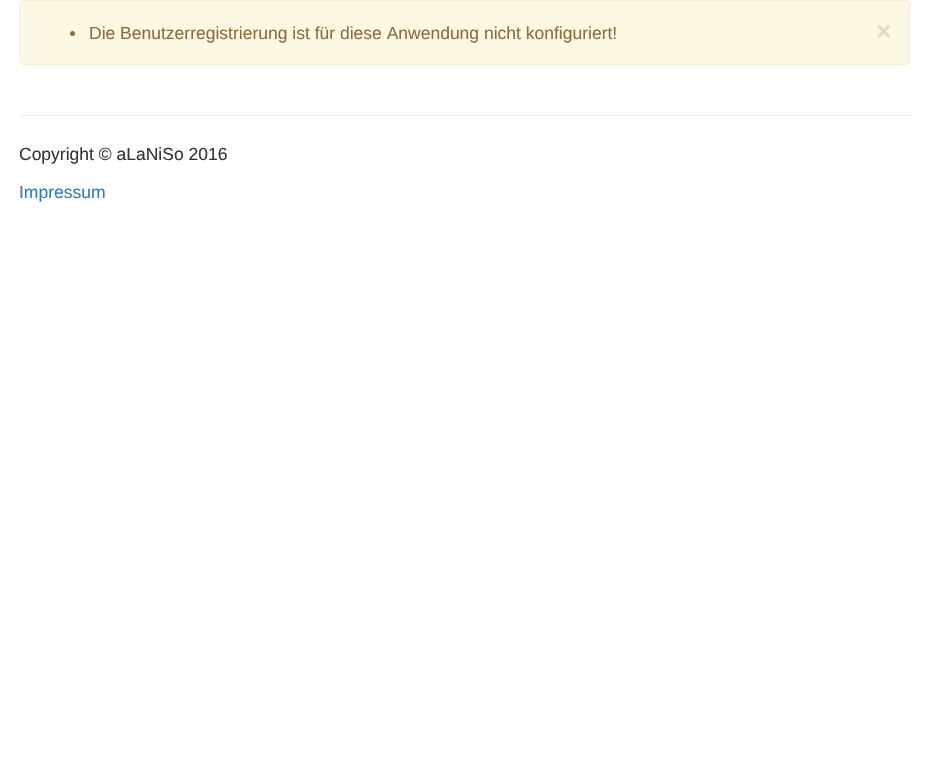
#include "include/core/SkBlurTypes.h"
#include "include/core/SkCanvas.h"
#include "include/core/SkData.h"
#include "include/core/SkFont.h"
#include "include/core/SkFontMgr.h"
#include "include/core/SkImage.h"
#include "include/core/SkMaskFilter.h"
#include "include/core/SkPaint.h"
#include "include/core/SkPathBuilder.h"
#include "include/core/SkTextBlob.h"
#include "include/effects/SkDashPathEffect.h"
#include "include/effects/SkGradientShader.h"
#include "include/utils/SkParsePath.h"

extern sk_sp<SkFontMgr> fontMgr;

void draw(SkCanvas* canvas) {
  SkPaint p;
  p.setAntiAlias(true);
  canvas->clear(SK_ColorWHITE);
  p.setColor(SkColorSetRGB(252, 248, 227));
  canvas->drawRoundRect(SkRect::MakeLTRB(19.5f, 0.5f, 909.5f, 64.5f), 4.5f, 4.5f, p);
  p.setStyle(SkPaint::kStroke_Style);
  p.setStrokeWidth(1);
  p.setColor(SkColorSetRGB(250, 235, 204));
  canvas->drawRoundRect(SkRect::MakeLTRB(19.5f, 0.5f, 909.5f, 64.5f), 4.5f, 4.5f, p);
  p.setStyle(SkPaint::kFill_Style);
  p.setColor(SkColorSetRGB(138, 109, 59));
  canvas->drawCircle(72.5f, 33.5f, 2.5f, p);
  p.setColor(SkColorSetRGB(238, 238, 238));
  canvas->drawRect(SkRect::MakeLTRB(19, 115, 910, 116), p);
  SkFont font1(fontMgr->matchFamilyStyle("Liberation Sans", SkFontStyle::Normal()), 17.5f);
  font1.setSubpixel(true);
  p.setColor(SkColorSetRGB(138, 109, 59));
  canvas->drawString("Die Benutzerregistrierung ist für diese Anwendung nicht konfiguriert!", 89, 39, font1, p);
  SkFont font2(fontMgr->matchFamilyStyle("Liberation Sans", SkFontStyle::Bold()), 26);
  font2.setSubpixel(true);
  p.setColor(SkColorSetRGB(229, 220, 193));
  canvas->drawString("×", 876, 40, font2, p);
  p.setColor(SkColorSetRGB(51, 51, 51));
  canvas->drawString("Copyright © aLaNiSo 2016", 19, 160, font1, p);
  p.setColor(SkColorSetRGB(51, 122, 183));
  canvas->drawString("Impressum", 19, 198, font1, p);
}
